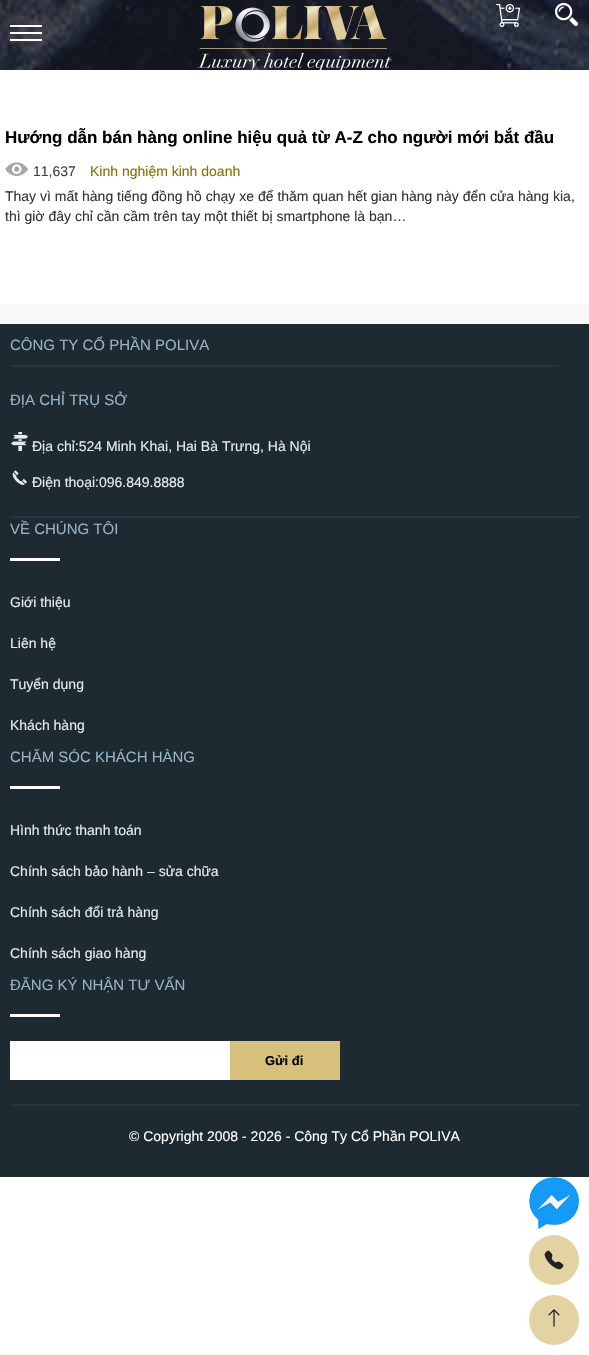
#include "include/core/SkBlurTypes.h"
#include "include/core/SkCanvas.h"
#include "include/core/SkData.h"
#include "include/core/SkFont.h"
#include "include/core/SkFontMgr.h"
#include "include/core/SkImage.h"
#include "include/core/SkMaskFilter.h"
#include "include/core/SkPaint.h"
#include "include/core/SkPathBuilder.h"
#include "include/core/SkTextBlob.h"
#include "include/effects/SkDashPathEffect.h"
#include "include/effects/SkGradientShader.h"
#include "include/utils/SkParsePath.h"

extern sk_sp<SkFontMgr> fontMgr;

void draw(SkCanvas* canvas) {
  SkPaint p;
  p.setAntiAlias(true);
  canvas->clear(SK_ColorWHITE);
  canvas->drawImageRect(SkImages::DeferredFromEncodedData(SkData::MakeFromFileName("images/1.png")), SkRect::MakeLTRB(0, 0, 589, 70), SkSamplingOptions());
  p.setColor(SK_ColorWHITE);
  canvas->drawRect(SkRect::MakeLTRB(10, 25, 42, 27), p);
  canvas->drawRect(SkRect::MakeLTRB(10, 32, 42, 34), p);
  canvas->drawRect(SkRect::MakeLTRB(10, 39, 42, 41), p);
  canvas->drawImageRect(SkImages::DeferredFromEncodedData(SkData::MakeFromFileName("images/2.png")), SkRect::MakeLTRB(198, 5, 391, 70), SkSamplingOptions());
  canvas->drawImageRect(SkImages::DeferredFromEncodedData(SkData::MakeFromFileName("images/3.png")), SkRect::MakeLTRB(496, 4, 520, 27), SkSamplingOptions());
  canvas->drawImageRect(SkImages::DeferredFromEncodedData(SkData::MakeFromFileName("images/4.png")), SkRect::MakeLTRB(555, 3, 578, 26), SkSamplingOptions());
  canvas->drawImageRect(SkImages::DeferredFromEncodedData(SkData::MakeFromFileName("images/5.png")), SkRect::MakeLTRB(5, 162, 28, 176), SkSamplingOptions());
  p.setColor(SkColorSetRGB(248, 248, 248));
  canvas->drawRect(SkRect::MakeLTRB(0, 304, 589, 324), p);
  p.setColor(SkColorSetRGB(29, 42, 50));
  canvas->drawRect(SkRect::MakeLTRB(0, 324, 589, 1177), p);
  p.setColor(SkColorSetRGB(40, 53, 62));
  canvas->drawRect(SkRect::MakeLTRB(10, 365, 559, 367), p);
  canvas->drawRect(SkRect::MakeLTRB(10, 516, 579, 518), p);
  canvas->drawImageRect(SkImages::DeferredFromEncodedData(SkData::MakeFromFileName("images/6.png")), SkRect::MakeLTRB(11, 432, 28, 451), SkSamplingOptions());
  canvas->drawImageRect(SkImages::DeferredFromEncodedData(SkData::MakeFromFileName("images/7.png")), SkRect::MakeLTRB(12, 470, 27, 485), SkSamplingOptions());
  p.setColor(SK_ColorWHITE);
  canvas->drawRect(SkRect::MakeLTRB(10, 558, 60, 561), p);
  canvas->drawRect(SkRect::MakeLTRB(10, 786, 60, 789), p);
  canvas->drawRect(SkRect::MakeLTRB(10, 1014, 60, 1017), p);
  canvas->drawRect(SkRect::MakeLTRB(10, 1041, 230, 1080), p);
  p.setColor(SkColorSetRGB(215, 192, 124));
  canvas->drawRect(SkRect::MakeLTRB(230, 1041, 340, 1080), p);
  p.setColor(SkColorSetRGB(40, 53, 61));
  canvas->drawRect(SkRect::MakeLTRB(10, 1104, 579, 1106), p);
  canvas->drawImageRect(SkImages::DeferredFromEncodedData(SkData::MakeFromFileName("images/8.png")), SkRect::MakeLTRB(529, 1177, 579, 1229), SkSamplingOptions());
  p.setColor(SkColorSetRGB(227, 211, 163));
  canvas->drawCircle(554, 1260, 25, p);
  canvas->drawImageRect(SkImages::DeferredFromEncodedData(SkData::MakeFromFileName("images/9.png")), SkRect::MakeLTRB(544, 1250, 564, 1270), SkSamplingOptions());
  canvas->drawCircle(554, 1320, 25, p);
  canvas->drawImageRect(SkImages::DeferredFromEncodedData(SkData::MakeFromFileName("images/10.png")), SkRect::MakeLTRB(548, 1309, 560, 1327), SkSamplingOptions());
  SkFont font1(fontMgr->matchFamilyStyle("Liberation Sans", SkFontStyle::Bold()), 17);
  font1.setSubpixel(true);
  p.setColor(SK_ColorBLACK);
  canvas->drawString("Hướng dẫn bán hàng online hiệu quả từ A-Z cho người mới bắt đầu", 5, 143, font1, p);
  SkFont font2(fontMgr->matchFamilyStyle("Liberation Sans", SkFontStyle::Normal()), 14);
  font2.setSubpixel(true);
  p.setColor(SkColorSetRGB(66, 66, 66));
  canvas->drawString("11,637", 33, 176, font2, p);
  p.setColor(SkColorSetRGB(133, 112, 0));
  canvas->drawString("Kinh nghiệm kinh doanh", 90, 176, font2, p);
  p.setColor(SkColorSetRGB(51, 51, 51));
  canvas->drawString("Thay vì mất hàng tiếng đồng hồ chạy xe để thăm quan hết gian hàng này đển cửa hàng kia,", 5, 201, font2, p);
  canvas->drawString("thì giờ đây chỉ cần cầm trên tay một thiết bị smartphone là bạn…", 5, 221, font2, p);
  SkFont font3(fontMgr->matchFamilyStyle("Liberation Sans", SkFontStyle::Normal()), 15);
  font3.setSubpixel(true);
  p.setColor(SkColorSetRGB(153, 179, 196));
  canvas->drawString("CÔNG TY CỔ PHẦN POLIVA", 10, 350, font3, p);
  canvas->drawString("ĐỊA CHỈ TRỤ SỞ", 10, 405, font3, p);
  p.setColor(SkColorSetRGB(231, 235, 236));
  canvas->drawString("Địa chỉ:524 Minh Khai, Hai Bà Trưng, Hà Nội", 32, 451, font2, p);
  canvas->drawString("Điện thoại:096.849.8888", 32, 487, font2, p);
  p.setColor(SkColorSetRGB(153, 179, 196));
  canvas->drawString("VỀ CHÚNG TÔI", 10, 534, font3, p);
  p.setColor(SkColorSetRGB(231, 235, 236));
  canvas->drawString("Giới thiệu", 10, 607, font2, p);
  canvas->drawString("Liên hệ", 10, 648, font2, p);
  canvas->drawString("Tuyển dụng", 10, 689, font2, p);
  canvas->drawString("Khách hàng", 10, 730, font2, p);
  p.setColor(SkColorSetRGB(153, 179, 196));
  canvas->drawString("CHĂM SÓC KHÁCH HÀNG", 10, 762, font3, p);
  p.setColor(SkColorSetRGB(231, 235, 236));
  canvas->drawString("Hình thức thanh toán", 10, 835, font2, p);
  canvas->drawString("Chính sách bảo hành – sửa chữa", 10, 876, font2, p);
  canvas->drawString("Chính sách đổi trả hàng", 10, 917, font2, p);
  canvas->drawString("Chính sách giao hàng", 10, 958, font2, p);
  p.setColor(SkColorSetRGB(153, 179, 196));
  canvas->drawString("ĐĂNG KÝ NHẬN TƯ VẤN", 10, 990, font3, p);
  SkFont font4(fontMgr->matchFamilyStyle("Liberation Sans", SkFontStyle::Bold()), 13);
  font4.setSubpixel(true);
  p.setColor(SK_ColorBLACK);
  canvas->drawString("Gửi đi", 265, 1065, font4, p);
  p.setColor(SK_ColorWHITE);
  canvas->drawString("© Copyright 2008 - 2026 - Công Ty Cổ Phần POLIVA", 129, 1141, font2, p);
}
